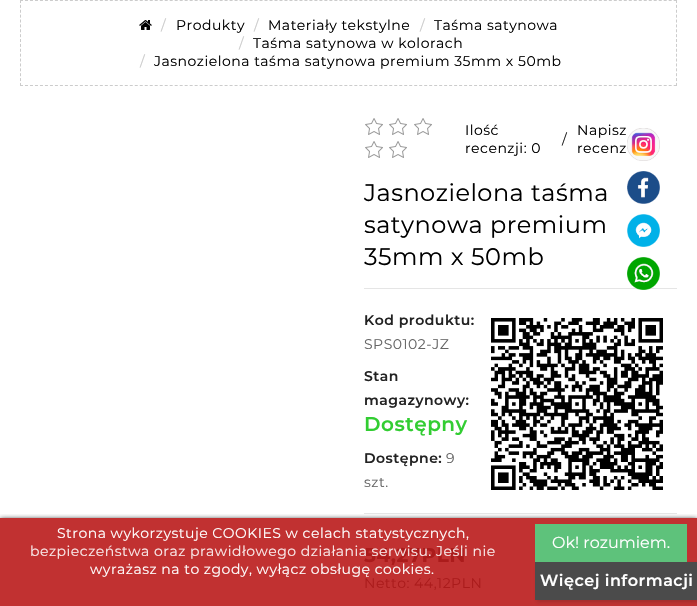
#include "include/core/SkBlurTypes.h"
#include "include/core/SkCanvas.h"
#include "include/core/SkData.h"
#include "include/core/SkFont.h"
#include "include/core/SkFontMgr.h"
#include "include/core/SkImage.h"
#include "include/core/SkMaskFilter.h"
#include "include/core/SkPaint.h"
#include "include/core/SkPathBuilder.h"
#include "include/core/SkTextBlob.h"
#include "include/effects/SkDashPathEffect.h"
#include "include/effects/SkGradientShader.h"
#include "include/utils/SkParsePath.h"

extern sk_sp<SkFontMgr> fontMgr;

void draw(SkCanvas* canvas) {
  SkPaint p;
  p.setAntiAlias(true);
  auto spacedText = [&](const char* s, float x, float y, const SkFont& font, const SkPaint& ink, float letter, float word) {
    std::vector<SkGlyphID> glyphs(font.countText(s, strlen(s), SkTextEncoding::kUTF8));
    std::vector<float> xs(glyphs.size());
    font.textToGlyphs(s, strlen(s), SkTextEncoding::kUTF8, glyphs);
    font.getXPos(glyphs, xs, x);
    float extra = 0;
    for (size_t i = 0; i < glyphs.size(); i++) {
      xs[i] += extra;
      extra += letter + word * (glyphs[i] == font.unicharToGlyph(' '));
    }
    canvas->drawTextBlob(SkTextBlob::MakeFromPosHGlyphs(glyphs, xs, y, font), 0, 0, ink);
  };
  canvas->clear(SK_ColorWHITE);
  p.setColor(SkColorSetRGB(193, 49, 49));
  canvas->drawRect(SkRect::MakeLTRB(0, 518, 697, 606), p);
  p.setStyle(SkPaint::kStroke_Style);
  p.setStrokeWidth(1);
  p.setColor(SkColorSetRGB(204, 204, 204));
  p.setPathEffect(SkDashPathEffect::Make({{3, 1.99f}}, 0));
  canvas->drawPath(SkPathBuilder().moveTo(20, 0.5f).lineTo(677, 0.5f).detach(), p);
  p.setPathEffect(nullptr);
  p.setPathEffect(SkDashPathEffect::Make({{3, 1.88f}}, 0));
  canvas->drawPath(SkPathBuilder().moveTo(676.5f, 0).lineTo(676.5f, 86).detach(), p);
  p.setPathEffect(nullptr);
  p.setPathEffect(SkDashPathEffect::Make({{3, 1.99f}}, 0));
  canvas->drawPath(SkPathBuilder().moveTo(20, 85.5f).lineTo(677, 85.5f).detach(), p);
  p.setPathEffect(nullptr);
  p.setPathEffect(SkDashPathEffect::Make({{3, 1.88f}}, 0));
  canvas->drawPath(SkPathBuilder().moveTo(20.5f, 0).lineTo(20.5f, 86).detach(), p);
  p.setPathEffect(nullptr);
  canvas->drawImageRect(SkImages::DeferredFromEncodedData(SkData::MakeFromFileName("images/1.png")), SkRect::MakeLTRB(139, 20, 152, 30), SkSamplingOptions());
  canvas->drawImageRect(SkImages::DeferredFromEncodedData(SkData::MakeFromFileName("images/2.png")), SkRect::MakeLTRB(365, 118, 383, 135), SkSamplingOptions());
  canvas->drawImageRect(SkImages::DeferredFromEncodedData(SkData::MakeFromFileName("images/2.png")), SkRect::MakeLTRB(389, 118, 407, 135), SkSamplingOptions());
  canvas->drawImageRect(SkImages::DeferredFromEncodedData(SkData::MakeFromFileName("images/2.png")), SkRect::MakeLTRB(414, 118, 432, 135), SkSamplingOptions());
  canvas->drawImageRect(SkImages::DeferredFromEncodedData(SkData::MakeFromFileName("images/2.png")), SkRect::MakeLTRB(365, 141, 383, 158), SkSamplingOptions());
  canvas->drawImageRect(SkImages::DeferredFromEncodedData(SkData::MakeFromFileName("images/2.png")), SkRect::MakeLTRB(389, 141, 407, 158), SkSamplingOptions());
  p.setStyle(SkPaint::kFill_Style);
  p.setColor(SkColorSetRGB(229, 229, 229));
  canvas->drawRect(SkRect::MakeLTRB(364, 288, 677, 289), p);
  canvas->drawRect(SkRect::MakeLTRB(364, 513, 677, 514), p);
  canvas->drawImageRect(SkImages::DeferredFromEncodedData(SkData::MakeFromFileName("images/3.png")), SkRect::MakeLTRB(491, 318, 663, 490), SkSamplingOptions());
  canvas->drawImageRect(SkImages::DeferredFromEncodedData(SkData::MakeFromFileName("images/4.png")), SkRect::MakeLTRB(627, 128, 660, 161), SkSamplingOptions());
  canvas->drawImageRect(SkImages::DeferredFromEncodedData(SkData::MakeFromFileName("images/5.png")), SkRect::MakeLTRB(627, 171, 660, 204), SkSamplingOptions());
  canvas->drawImageRect(SkImages::DeferredFromEncodedData(SkData::MakeFromFileName("images/6.png")), SkRect::MakeLTRB(627, 214, 660, 247), SkSamplingOptions());
  canvas->drawImageRect(SkImages::DeferredFromEncodedData(SkData::MakeFromFileName("images/7.png")), SkRect::MakeLTRB(627, 257, 660, 290), SkSamplingOptions());
  canvas->save();
  canvas->clipRect(SkRect::MakeLTRB(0, 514, 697, 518));
  p.setColor(SkColorSetRGB(26, 26, 26));
  p.setMaskFilter(SkMaskFilter::MakeBlur(kNormal_SkBlurStyle, 2.5f));
  canvas->drawRect(SkRect::MakeLTRB(0, 519, 697, 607), p);
  p.setMaskFilter(nullptr);
  canvas->restore();
  p.setColor(SkColorSetARGB(51, 26, 26, 26));
  p.setMaskFilter(SkMaskFilter::MakeBlur(kNormal_SkBlurStyle, 2));
  canvas->drawRect(SkRect::MakeLTRB(537, 564, 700, 602), p);
  p.setMaskFilter(nullptr);
  p.setColor(SkColorSetRGB(94, 194, 123));
  canvas->drawRect(SkRect::MakeLTRB(535, 524, 687, 562), p);
  p.setColor(SkColorSetRGB(75, 75, 75));
  canvas->drawRect(SkRect::MakeLTRB(535, 562, 697, 600), p);
  SkFont font1(fontMgr->matchFamilyStyle("Montserrat", SkFontStyle::Normal()), 14);
  font1.setSubpixel(true);
  p.setColor(SkColorSetRGB(204, 204, 204));
  spacedText("/", 161, 30, font1, p, 0.5f, 0);
  p.setColor(SK_ColorBLACK);
  spacedText("Produkty", 176, 30, font1, p, 0.5f, 0);
  p.setColor(SkColorSetRGB(204, 204, 204));
  spacedText("/", 254, 30, font1, p, 0.5f, 0);
  p.setColor(SK_ColorBLACK);
  spacedText("Materiały tekstylne", 268, 30, font1, p, 0.5f, 0);
  p.setColor(SkColorSetRGB(204, 204, 204));
  spacedText("/", 420, 30, font1, p, 0.5f, 0);
  p.setColor(SK_ColorBLACK);
  spacedText("Taśma satynowa", 434, 30, font1, p, 0.5f, 0);
  p.setColor(SkColorSetRGB(204, 204, 204));
  spacedText("/", 239, 48, font1, p, 0.5f, 0);
  p.setColor(SK_ColorBLACK);
  spacedText("Taśma satynowa w kolorach", 253, 48, font1, p, 0.5f, 0);
  p.setColor(SkColorSetRGB(204, 204, 204));
  spacedText("/", 140, 66, font1, p, 0.5f, 0);
  p.setColor(SK_ColorBLACK);
  spacedText("Jasnozielona taśma satynowa premium 35mm x 50mb", 154, 66, font1, p, 0.5f, 0);
  spacedText("Ilość", 465, 135, font1, p, 0.5f, 0);
  spacedText("recenzji: 0", 465, 153, font1, p, 0.5f, 0);
  p.setColor(SkColorSetRGB(35, 35, 35));
  spacedText("/", 562, 144, font1, p, 0.5f, 0);
  p.setColor(SK_ColorBLACK);
  spacedText("Napisz", 577, 135, font1, p, 0.5f, 0);
  spacedText("recenz", 577, 153, font1, p, 0.5f, 0);
  SkFont font2(fontMgr->matchFamilyStyle("Montserrat", SkFontStyle::Normal()), 24);
  font2.setSubpixel(true);
  spacedText("Jasnozielona taśma", 364, 201, font2, p, 0.5f, 0);
  spacedText("satynowa premium", 364, 233, font2, p, 0.5f, 0);
  spacedText("35mm x 50mb", 364, 265, font2, p, 0.5f, 0);
  SkFont font3(fontMgr->matchFamilyStyle("Montserrat", SkFontStyle(600, SkFontStyle::kNormal_Width, SkFontStyle::kUpright_Slant)), 14);
  font3.setSubpixel(true);
  p.setColor(SkColorSetRGB(35, 35, 35));
  spacedText("Kod produktu:", 364, 325, font3, p, 0.5f, 0);
  p.setColor(SkColorSetRGB(102, 102, 102));
  spacedText("SPS0102-JZ", 364, 349, font1, p, 0.5f, 0);
  p.setColor(SkColorSetRGB(35, 35, 35));
  spacedText("Stan", 364, 381, font3, p, 0.5f, 0);
  spacedText("magazynowy:", 364, 405, font3, p, 0.5f, 0);
  SkFont font4(fontMgr->matchFamilyStyle("Montserrat", SkFontStyle(600, SkFontStyle::kNormal_Width, SkFontStyle::kUpright_Slant)), 20);
  font4.setSubpixel(true);
  p.setColor(SkColorSetRGB(50, 205, 50));
  spacedText("Dostępny", 364, 431, font4, p, 0.5f, 0);
  p.setColor(SkColorSetRGB(35, 35, 35));
  spacedText("Dostępne:", 364, 463, font3, p, 0.5f, 0);
  p.setColor(SkColorSetRGB(102, 102, 102));
  spacedText("9", 446, 463, font1, p, 0.5f, 0);
  spacedText("szt.", 364, 487, font1, p, 0.5f, 0);
  SkFont font5(fontMgr->matchFamilyStyle("Montserrat", SkFontStyle::Bold()), 20);
  font5.setSubpixel(true);
  p.setColor(SkColorSetRGB(171, 27, 27));
  spacedText("54,27PLN", 364, 562, font5, p, 0.5f, 0);
  spacedText("Netto: 44,12PLN", 364, 588, font1, p, 0.5f, 0);
  p.setColor(SK_ColorWHITE);
  spacedText("Strona wykorzystuje COOKIES w celach statystycznych,", 57, 538, font1, p, 0.5f, 0);
  p.setColor(SkColorSetRGB(249, 234, 234));
  spacedText("bezpieczeństwa oraz prawidłowego działania serwisu. Jeśli nie", 30, 556, font1, p, 0.5f, 0);
  p.setColor(SK_ColorWHITE);
  spacedText("wyrażasz na to zgody, wyłącz obsługę cookies.", 90, 574, font1, p, 0.5f, 0);
  SkFont font6(fontMgr->matchFamilyStyle("Montserrat", SkFontStyle::Normal()), 16);
  font6.setSubpixel(true);
  canvas->drawString("Ok! rozumiem.", 552, 548, font6, p);
  SkFont font7(fontMgr->matchFamilyStyle("Montserrat", SkFontStyle(600, SkFontStyle::kNormal_Width, SkFontStyle::kUpright_Slant)), 16);
  font7.setSubpixel(true);
  spacedText("Więcej informacji", 540, 586, font7, p, 0.5f, 0);
}
